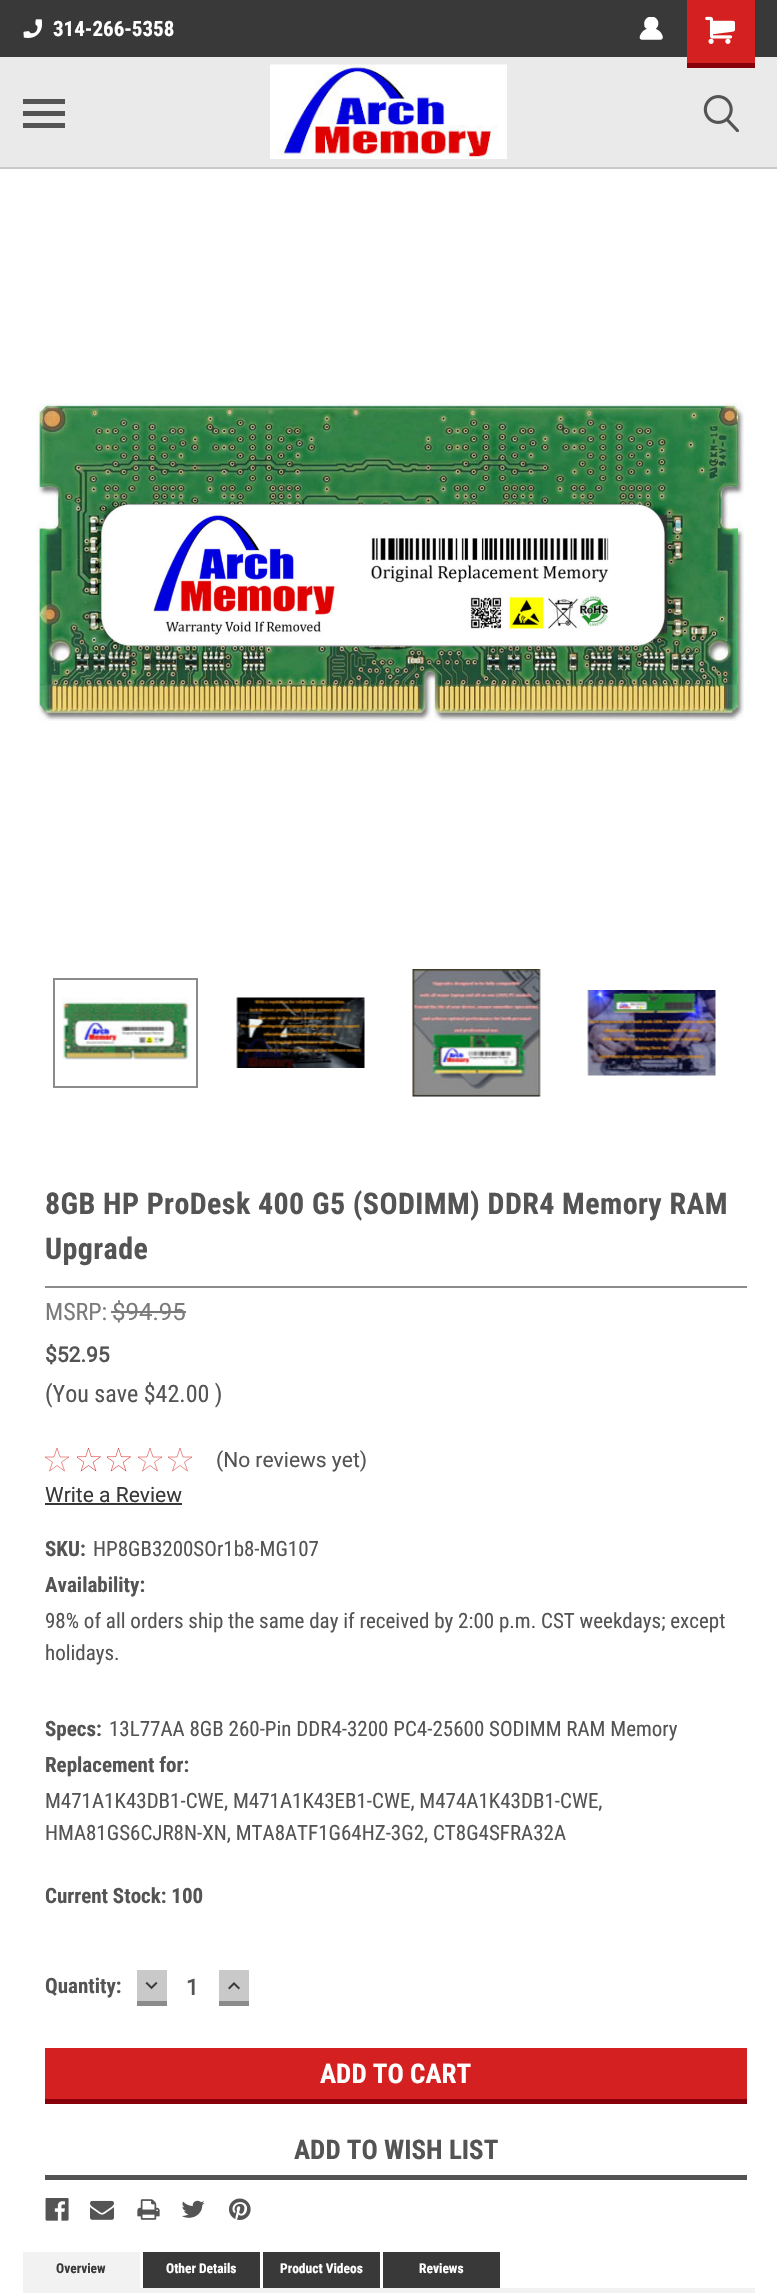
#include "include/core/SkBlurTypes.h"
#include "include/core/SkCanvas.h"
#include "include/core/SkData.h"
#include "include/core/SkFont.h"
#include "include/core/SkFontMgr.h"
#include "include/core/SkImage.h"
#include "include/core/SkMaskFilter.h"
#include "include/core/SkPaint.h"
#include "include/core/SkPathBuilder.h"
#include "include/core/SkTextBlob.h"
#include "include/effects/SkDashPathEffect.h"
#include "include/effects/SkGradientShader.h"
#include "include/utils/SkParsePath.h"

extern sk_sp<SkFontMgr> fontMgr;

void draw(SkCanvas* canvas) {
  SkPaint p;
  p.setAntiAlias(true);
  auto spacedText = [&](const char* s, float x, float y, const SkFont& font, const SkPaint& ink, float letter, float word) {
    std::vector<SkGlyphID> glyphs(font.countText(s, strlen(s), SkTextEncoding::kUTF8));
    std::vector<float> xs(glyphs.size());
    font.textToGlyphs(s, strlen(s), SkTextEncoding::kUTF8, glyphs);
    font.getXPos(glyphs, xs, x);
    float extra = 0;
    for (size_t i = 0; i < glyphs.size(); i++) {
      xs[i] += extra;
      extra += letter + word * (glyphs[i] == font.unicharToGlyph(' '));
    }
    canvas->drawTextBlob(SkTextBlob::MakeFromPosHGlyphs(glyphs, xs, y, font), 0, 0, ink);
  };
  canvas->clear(SK_ColorWHITE);
  p.setColor(SkColorSetRGB(202, 201, 201));
  canvas->drawRect(SkRect::MakeLTRB(0, 167, 777, 169), p);
  p.setColor(SkColorSetRGB(57, 57, 57));
  canvas->drawRect(SkRect::MakeLTRB(0, 0, 777, 57), p);
  canvas->drawImageRect(SkImages::DeferredFromEncodedData(SkData::MakeFromFileName("images/1.png")), SkRect::MakeLTRB(23, 19, 42, 38), SkSamplingOptions());
  canvas->drawImageRect(SkImages::DeferredFromEncodedData(SkData::MakeFromFileName("images/2.png")), SkRect::MakeLTRB(639, 17, 663, 40), SkSamplingOptions());
  p.setColor(SkColorSetRGB(234, 234, 234));
  canvas->drawRect(SkRect::MakeLTRB(0, 57, 777, 167), p);
  p.setColor(SkColorSetRGB(212, 32, 32));
  canvas->drawRect(SkRect::MakeLTRB(687, 0, 755, 63), p);
  p.setColor(SkColorSetRGB(134, 1, 9));
  canvas->drawRect(SkRect::MakeLTRB(687, 63, 755, 68), p);
  canvas->drawImageRect(SkImages::DeferredFromEncodedData(SkData::MakeFromFileName("images/3.png")), SkRect::MakeLTRB(705, 16, 735, 44), SkSamplingOptions());
  p.setColor(SkColorSetRGB(84, 84, 84));
  canvas->drawRect(SkRect::MakeLTRB(23, 111, 65, 116), p);
  canvas->drawRect(SkRect::MakeLTRB(23, 99, 65, 104), p);
  canvas->drawRect(SkRect::MakeLTRB(23, 123, 65, 128), p);
  canvas->drawImageRect(SkImages::DeferredFromEncodedData(SkData::MakeFromFileName("images/4.png")), SkRect::MakeLTRB(270, 64, 507, 159), SkSamplingOptions());
  canvas->drawImageRect(SkImages::DeferredFromEncodedData(SkData::MakeFromFileName("images/5.png")), SkRect::MakeLTRB(703, 95, 739, 132), SkSamplingOptions());
  canvas->drawImageRect(SkImages::DeferredFromEncodedData(SkData::MakeFromFileName("images/6.png")), SkRect::MakeLTRB(36, 403, 744, 721), SkSamplingOptions());
  p.setStyle(SkPaint::kStroke_Style);
  p.setStrokeWidth(2);
  p.setColor(SkColorSetRGB(139, 139, 139));
  canvas->drawRect(SkRect::MakeLTRB(54, 979, 197, 1087), p);
  canvas->drawImageRect(SkImages::DeferredFromEncodedData(SkData::MakeFromFileName("images/7.png")), SkRect::MakeLTRB(62, 997, 189, 1060), SkSamplingOptions());
  canvas->drawImageRect(SkImages::DeferredFromEncodedData(SkData::MakeFromFileName("images/8.png")), SkRect::MakeLTRB(236, 997, 365, 1068), SkSamplingOptions());
  canvas->drawImageRect(SkImages::DeferredFromEncodedData(SkData::MakeFromFileName("images/9.png")), SkRect::MakeLTRB(412, 969, 541, 1097), SkSamplingOptions());
  canvas->drawImageRect(SkImages::DeferredFromEncodedData(SkData::MakeFromFileName("images/10.png")), SkRect::MakeLTRB(587, 990, 716, 1076), SkSamplingOptions());
  p.setStyle(SkPaint::kFill_Style);
  canvas->drawRect(SkRect::MakeLTRB(45, 1286, 747, 1288), p);
  p.setColor(SkColorSetRGB(123, 123, 123));
  canvas->drawRect(SkRect::MakeLTRB(111, 1311, 186, 1313), p);
  canvas->save();
  canvas->clipRect(SkRect::MakeLTRB(45, 1448, 69, 1472));
  p.setStyle(SkPaint::kStroke_Style);
  p.setStrokeWidth(0.5f);
  p.setColor(SkColorSetRGB(212, 32, 32));
  canvas->drawPath(SkPathBuilder().moveTo(57, 1448).lineTo(60, 1457).lineTo(69, 1457).lineTo(61.5f, 1462).lineTo(64.5f, 1471).lineTo(57, 1465.5f).lineTo(49.5f, 1471).lineTo(52.5f, 1462).lineTo(45, 1457).lineTo(54, 1457).close().detach(), p);
  canvas->restore();
  canvas->drawImageRect(SkImages::DeferredFromEncodedData(SkData::MakeFromFileName("images/11.png")), SkRect::MakeLTRB(77, 1448, 101, 1472), SkSamplingOptions());
  canvas->drawImageRect(SkImages::DeferredFromEncodedData(SkData::MakeFromFileName("images/11.png")), SkRect::MakeLTRB(107, 1448, 131, 1472), SkSamplingOptions());
  canvas->save();
  canvas->clipRect(SkRect::MakeLTRB(138, 1448, 162, 1472));
  canvas->drawPath(SkPathBuilder().moveTo(150, 1448).lineTo(153, 1457).lineTo(162, 1457).lineTo(154.5f, 1462).lineTo(157.5f, 1471).lineTo(150, 1465.5f).lineTo(142.5f, 1471).lineTo(145.5f, 1462).lineTo(138, 1457).lineTo(147, 1457).close().detach(), p);
  canvas->restore();
  canvas->save();
  canvas->clipRect(SkRect::MakeLTRB(168, 1448, 192, 1472));
  canvas->drawPath(SkPathBuilder().moveTo(180, 1448).lineTo(183, 1457).lineTo(192, 1457).lineTo(184.5f, 1462).lineTo(187.5f, 1471).lineTo(180, 1465.5f).lineTo(172.5f, 1471).lineTo(175.5f, 1462).lineTo(168, 1457).lineTo(177, 1457).close().detach(), p);
  canvas->restore();
  p.setStyle(SkPaint::kFill_Style);
  p.setColor(SkColorSetRGB(57, 57, 57));
  canvas->drawRect(SkRect::MakeLTRB(45, 1503, 182, 1505), p);
  p.setColor(SkColorSetRGB(202, 201, 201));
  canvas->drawRect(SkRect::MakeLTRB(137, 1970, 167, 2001), p);
  p.setColor(SkColorSetRGB(139, 139, 139));
  canvas->drawRect(SkRect::MakeLTRB(137, 2001, 167, 2006), p);
  canvas->drawImageRect(SkImages::DeferredFromEncodedData(SkData::MakeFromFileName("images/12.png")), SkRect::MakeLTRB(145, 1982, 158, 1990), SkSamplingOptions());
  p.setColor(SkColorSetRGB(202, 201, 201));
  canvas->drawRect(SkRect::MakeLTRB(219, 1970, 249, 2001), p);
  p.setColor(SkColorSetRGB(139, 139, 139));
  canvas->drawRect(SkRect::MakeLTRB(219, 2001, 249, 2006), p);
  canvas->drawImageRect(SkImages::DeferredFromEncodedData(SkData::MakeFromFileName("images/13.png")), SkRect::MakeLTRB(228, 1982, 240, 1990), SkSamplingOptions());
  p.setColor(SkColorSetRGB(212, 32, 32));
  canvas->drawRect(SkRect::MakeLTRB(45, 2048, 747, 2099), p);
  p.setColor(SkColorSetRGB(134, 1, 9));
  canvas->drawRect(SkRect::MakeLTRB(45, 2099, 747, 2104), p);
  p.setColor(SkColorSetRGB(84, 84, 84));
  canvas->drawRect(SkRect::MakeLTRB(45, 2175, 747, 2180), p);
  canvas->drawImageRect(SkImages::DeferredFromEncodedData(SkData::MakeFromFileName("images/14.png")), SkRect::MakeLTRB(45, 2198, 69, 2221), SkSamplingOptions());
  canvas->drawImageRect(SkImages::DeferredFromEncodedData(SkData::MakeFromFileName("images/15.png")), SkRect::MakeLTRB(90, 2200, 114, 2220), SkSamplingOptions());
  canvas->drawImageRect(SkImages::DeferredFromEncodedData(SkData::MakeFromFileName("images/16.png")), SkRect::MakeLTRB(137, 2199, 160, 2220), SkSamplingOptions());
  canvas->drawImageRect(SkImages::DeferredFromEncodedData(SkData::MakeFromFileName("images/17.png")), SkRect::MakeLTRB(182, 2200, 205, 2218), SkSamplingOptions());
  canvas->drawImageRect(SkImages::DeferredFromEncodedData(SkData::MakeFromFileName("images/18.png")), SkRect::MakeLTRB(229, 2198, 251, 2220), SkSamplingOptions());
  p.setColor(SkColorSetRGB(242, 242, 242));
  canvas->drawRect(SkRect::MakeLTRB(23, 2252, 140, 2288), p);
  p.setColor(SkColorSetRGB(57, 57, 57));
  canvas->drawRect(SkRect::MakeLTRB(143, 2252, 260, 2288), p);
  canvas->drawRect(SkRect::MakeLTRB(263, 2252, 380, 2288), p);
  canvas->drawRect(SkRect::MakeLTRB(383, 2252, 500, 2288), p);
  p.setColor(SkColorSetRGB(242, 242, 242));
  canvas->drawRect(SkRect::MakeLTRB(23, 2288, 755, 2293), p);
  SkFont font1(fontMgr->matchFamilyStyle("Roboto Condensed", SkFontStyle::Bold()), 21);
  font1.setSubpixel(true);
  p.setColor(SK_ColorWHITE);
  canvas->drawString("314-266-5358", 53, 36, font1, p);
  SkFont font2(fontMgr->matchFamilyStyle("Roboto Condensed", SkFontStyle::Bold()), 30);
  font2.setSubpixel(true);
  p.setColor(SkColorSetRGB(84, 84, 84));
  spacedText("8GB HP ProDesk 400 G5 (SODIMM) DDR4 Memory RAM", 45, 1214, font2, p, 0.4f, 0);
  spacedText("Upgrade", 45, 1259, font2, p, 0.4f, 0);
  SkFont font3(fontMgr->matchFamilyStyle("Roboto Condensed", SkFontStyle::Normal()), 24);
  font3.setSubpixel(true);
  p.setColor(SkColorSetRGB(123, 123, 123));
  canvas->drawString("MSRP:", 45, 1320, font3, p);
  SkFont font4(fontMgr->matchFamilyStyle("Roboto", SkFontStyle::Normal()), 24);
  font4.setSubpixel(true);
  canvas->drawString("$94.95", 112, 1320, font4, p);
  SkFont font5(fontMgr->matchFamilyStyle("Roboto", SkFontStyle::Bold()), 21);
  font5.setSubpixel(true);
  p.setColor(SkColorSetRGB(84, 84, 84));
  canvas->drawString("$52.95", 45, 1362, font5, p);
  canvas->drawString("(You save $42.00 )", 45, 1402, font3, p);
  SkFont font6(fontMgr->matchFamilyStyle("Roboto", SkFontStyle::Normal()), 21);
  font6.setSubpixel(true);
  canvas->drawString("(No reviews yet)", 216, 1467, font6, p);
  p.setColor(SkColorSetRGB(57, 57, 57));
  canvas->drawString("Write a Review", 45, 1502, font6, p);
  p.setColor(SkColorSetRGB(84, 84, 84));
  canvas->drawString("SKU:", 45, 1556, font1, p);
  SkFont font7(fontMgr->matchFamilyStyle("Roboto Condensed", SkFontStyle::Normal()), 21);
  font7.setSubpixel(true);
  canvas->drawString("HP8GB3200SOr1b8-MG107", 93, 1556, font7, p);
  canvas->drawString("Availability:", 45, 1592, font1, p);
  canvas->drawString("98% of all orders ship the same day if received by 2:00 p.m. CST weekdays; except", 45, 1628, font7, p);
  canvas->drawString("holidays.", 45, 1660, font7, p);
  canvas->drawString("Specs:", 45, 1736, font1, p);
  canvas->drawString("13L77AA 8GB 260-Pin DDR4-3200 PC4-25600 SODIMM RAM Memory", 109, 1736, font7, p);
  canvas->drawString("Replacement for:", 45, 1772, font1, p);
  canvas->drawString("M471A1K43DB1-CWE, M471A1K43EB1-CWE, M474A1K43DB1-CWE,", 45, 1808, font7, p);
  canvas->drawString("HMA81GS6CJR8N-XN, MTA8ATF1G64HZ-3G2, CT8G4SFRA32A", 45, 1840, font7, p);
  canvas->drawString("Current Stock: 100", 45, 1903, font1, p);
  canvas->drawString("Quantity:", 45, 1993, font1, p);
  SkFont font8(fontMgr->matchFamilyStyle("Roboto", SkFontStyle::Bold()), 22);
  font8.setSubpixel(true);
  canvas->drawString("1", 186, 1995, font8, p);
  SkFont font9(fontMgr->matchFamilyStyle("Roboto Condensed", SkFontStyle::Bold()), 27);
  font9.setSubpixel(true);
  p.setColor(SK_ColorWHITE);
  canvas->drawString("ADD TO CART", 320, 2083, font9, p);
  p.setColor(SkColorSetRGB(84, 84, 84));
  canvas->drawString("ADD TO WISH LIST", 294, 2159, font9, p);
  SkFont font10(fontMgr->matchFamilyStyle("Roboto Condensed", SkFontStyle::Bold()), 13.5f);
  font10.setSubpixel(true);
  p.setColor(SkColorSetRGB(57, 57, 57));
  canvas->drawString("Overview", 56, 2273, font10, p);
  p.setColor(SK_ColorWHITE);
  canvas->drawString("Other Details", 166, 2273, font10, p);
  canvas->drawString("Product Videos", 280, 2273, font10, p);
  canvas->drawString("Reviews", 419, 2273, font10, p);
}
